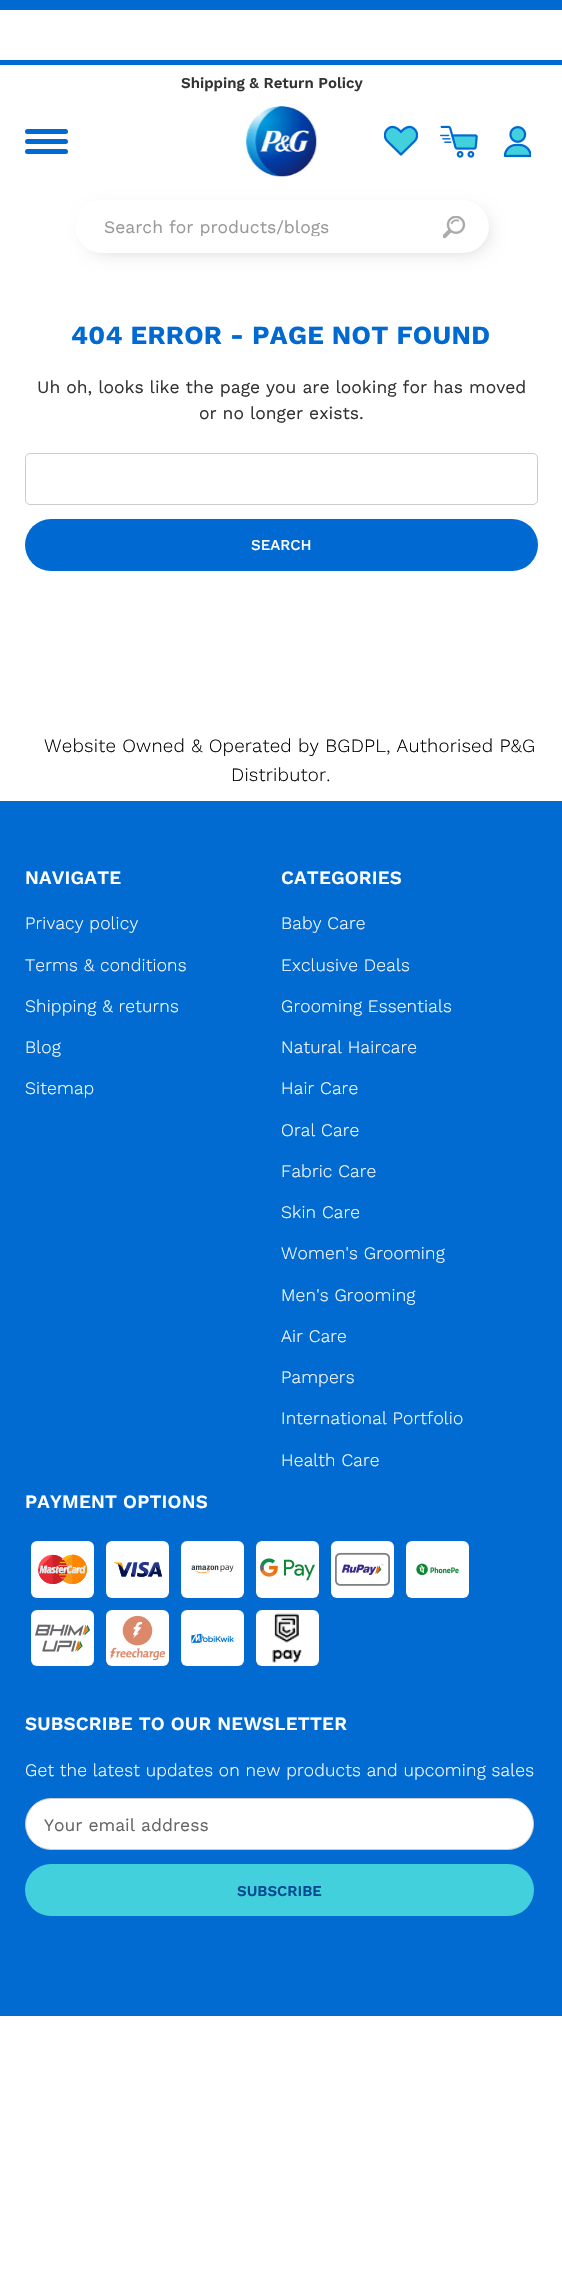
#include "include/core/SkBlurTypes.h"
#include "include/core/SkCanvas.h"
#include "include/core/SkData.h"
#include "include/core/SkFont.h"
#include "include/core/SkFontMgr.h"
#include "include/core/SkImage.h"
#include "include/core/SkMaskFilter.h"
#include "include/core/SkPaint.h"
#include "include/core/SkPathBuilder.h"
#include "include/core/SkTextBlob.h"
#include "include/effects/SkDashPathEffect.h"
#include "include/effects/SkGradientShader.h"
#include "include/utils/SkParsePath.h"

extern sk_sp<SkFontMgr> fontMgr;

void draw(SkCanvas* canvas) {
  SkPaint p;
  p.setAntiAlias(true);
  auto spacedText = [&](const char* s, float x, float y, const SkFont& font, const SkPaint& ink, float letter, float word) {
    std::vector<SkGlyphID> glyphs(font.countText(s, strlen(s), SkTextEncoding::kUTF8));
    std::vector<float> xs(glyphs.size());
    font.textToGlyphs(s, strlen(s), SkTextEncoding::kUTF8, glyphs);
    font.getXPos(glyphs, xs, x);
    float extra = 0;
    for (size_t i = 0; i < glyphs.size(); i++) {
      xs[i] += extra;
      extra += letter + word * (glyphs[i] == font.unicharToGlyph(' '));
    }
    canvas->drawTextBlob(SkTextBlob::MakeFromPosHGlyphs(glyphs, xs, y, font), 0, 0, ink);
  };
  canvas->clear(SK_ColorWHITE);
  p.setColor(SkColorSetRGB(0, 105, 210));
  canvas->drawRect(SkRect::MakeLTRB(0, 0, 562, 65), p);
  p.setColor(SK_ColorWHITE);
  canvas->drawRect(SkRect::MakeLTRB(0, 10, 562, 60), p);
  p.setColor(SkColorSetRGB(0, 105, 210));
  canvas->drawRoundRect(SkRect::MakeLTRB(25, 139, 68, 144), 2.5f, 2.5f, p);
  canvas->drawRoundRect(SkRect::MakeLTRB(25, 129, 68, 134), 2.5f, 2.5f, p);
  canvas->drawRoundRect(SkRect::MakeLTRB(25, 149, 68, 154), 2.5f, 2.5f, p);
  canvas->drawImageRect(SkImages::DeferredFromEncodedData(SkData::MakeFromFileName("images/1.png")), SkRect::MakeLTRB(246, 106, 317, 177), SkSamplingOptions());
  canvas->drawImageRect(SkImages::DeferredFromEncodedData(SkData::MakeFromFileName("images/2.png")), SkRect::MakeLTRB(384, 125, 418, 156), SkSamplingOptions());
  canvas->drawImageRect(SkImages::DeferredFromEncodedData(SkData::MakeFromFileName("images/3.png")), SkRect::MakeLTRB(440, 125, 478, 158), SkSamplingOptions());
  canvas->drawImageRect(SkImages::DeferredFromEncodedData(SkData::MakeFromFileName("images/4.png")), SkRect::MakeLTRB(504, 126, 531, 158), SkSamplingOptions());
  p.setColor(SkColorSetRGB(204, 204, 204));
  p.setMaskFilter(SkMaskFilter::MakeBlur(kNormal_SkBlurStyle, 9.5f));
  canvas->drawRoundRect(SkRect::MakeLTRB(88, 213, 486, 250), 18.5f, 18.5f, p);
  p.setMaskFilter(nullptr);
  p.setColor(SK_ColorWHITE);
  canvas->drawRoundRect(SkRect::MakeLTRB(75, 200, 489, 253), 26.5f, 26.5f, p);
  canvas->drawImageRect(SkImages::DeferredFromEncodedData(SkData::MakeFromFileName("images/5.png")), SkRect::MakeLTRB(443, 216, 466, 239), SkSamplingOptions());
  p.setStyle(SkPaint::kStroke_Style);
  p.setStrokeWidth(1);
  p.setColor(SkColorSetRGB(204, 204, 204));
  canvas->drawRoundRect(SkRect::MakeLTRB(25.5f, 453.5f, 537.5f, 504.5f), 4.5f, 4.5f, p);
  p.setStyle(SkPaint::kFill_Style);
  p.setColor(SkColorSetRGB(0, 105, 210));
  canvas->drawRoundRect(SkRect::MakeLTRB(25, 519, 538, 571), 26, 26, p);
  p.setColor(SkColorSetRGB(1, 107, 210));
  canvas->drawRect(SkRect::MakeLTRB(0, 801, 562, 2016), p);
  p.setColor(SK_ColorWHITE);
  canvas->drawRoundRect(SkRect::MakeLTRB(31, 1541, 94, 1598), 6, 6, p);
  canvas->drawImageRect(SkImages::DeferredFromEncodedData(SkData::MakeFromFileName("images/6.png")), SkRect::MakeLTRB(38, 1554, 87, 1584), SkSamplingOptions());
  canvas->drawRoundRect(SkRect::MakeLTRB(106, 1541, 169, 1598), 6, 6, p);
  canvas->drawImageRect(SkImages::DeferredFromEncodedData(SkData::MakeFromFileName("images/7.png")), SkRect::MakeLTRB(113, 1562, 162, 1577), SkSamplingOptions());
  canvas->drawRoundRect(SkRect::MakeLTRB(181, 1541, 244, 1598), 6, 6, p);
  canvas->drawImageRect(SkImages::DeferredFromEncodedData(SkData::MakeFromFileName("images/8.png")), SkRect::MakeLTRB(191, 1565, 234, 1574), SkSamplingOptions());
  canvas->drawRoundRect(SkRect::MakeLTRB(256, 1541, 319, 1598), 6, 6, p);
  canvas->drawImageRect(SkImages::DeferredFromEncodedData(SkData::MakeFromFileName("images/9.png")), SkRect::MakeLTRB(260, 1558, 315, 1581), SkSamplingOptions());
  canvas->drawRoundRect(SkRect::MakeLTRB(331, 1541, 394, 1598), 6, 6, p);
  canvas->drawImageRect(SkImages::DeferredFromEncodedData(SkData::MakeFromFileName("images/10.png")), SkRect::MakeLTRB(335, 1552, 390, 1586), SkSamplingOptions());
  canvas->drawRoundRect(SkRect::MakeLTRB(406, 1541, 469, 1598), 6, 6, p);
  canvas->drawImageRect(SkImages::DeferredFromEncodedData(SkData::MakeFromFileName("images/11.png")), SkRect::MakeLTRB(416, 1563, 459, 1576), SkSamplingOptions());
  canvas->drawRoundRect(SkRect::MakeLTRB(31, 1610, 94, 1666), 6, 6, p);
  canvas->drawImageRect(SkImages::DeferredFromEncodedData(SkData::MakeFromFileName("images/12.png")), SkRect::MakeLTRB(35, 1624, 90, 1652), SkSamplingOptions());
  canvas->drawRoundRect(SkRect::MakeLTRB(106, 1610, 169, 1666), 6, 6, p);
  canvas->drawImageRect(SkImages::DeferredFromEncodedData(SkData::MakeFromFileName("images/13.png")), SkRect::MakeLTRB(110, 1615, 165, 1661), SkSamplingOptions());
  canvas->drawRoundRect(SkRect::MakeLTRB(181, 1610, 244, 1666), 6, 6, p);
  canvas->drawImageRect(SkImages::DeferredFromEncodedData(SkData::MakeFromFileName("images/14.png")), SkRect::MakeLTRB(191, 1633, 234, 1643), SkSamplingOptions());
  canvas->drawRoundRect(SkRect::MakeLTRB(256, 1610, 319, 1666), 6, 6, p);
  canvas->drawImageRect(SkImages::DeferredFromEncodedData(SkData::MakeFromFileName("images/15.png")), SkRect::MakeLTRB(272, 1613, 302, 1663), SkSamplingOptions());
  canvas->drawRoundRect(SkRect::MakeLTRB(25.5f, 1798.5f, 533.5f, 1849.5f), 25.5f, 25.5f, p);
  p.setStyle(SkPaint::kStroke_Style);
  p.setColor(SkColorSetRGB(204, 204, 204));
  canvas->drawRoundRect(SkRect::MakeLTRB(25.5f, 1798.5f, 533.5f, 1849.5f), 25.5f, 25.5f, p);
  p.setStyle(SkPaint::kFill_Style);
  p.setColor(SkColorSetRGB(66, 209, 220));
  canvas->drawRoundRect(SkRect::MakeLTRB(25, 1864, 534, 1916), 26, 26, p);
  SkFont font1(fontMgr->matchFamilyStyle("Work Sans", SkFontStyle(600, SkFontStyle::kNormal_Width, SkFontStyle::kUpright_Slant)), 15);
  font1.setSubpixel(true);
  p.setColor(SkColorSetRGB(51, 51, 51));
  canvas->drawString("Shipping & Return Policy", 181, 88, font1, p);
  canvas->save();
  canvas->clipRect(SkRect::MakeLTRB(105, 216, 414, 236));
  SkFont font2(fontMgr->matchFamilyStyle("Work Sans", SkFontStyle::Normal()), 17.5f);
  font2.setSubpixel(true);
  p.setColor(SkColorSetRGB(153, 153, 153));
  canvas->drawString("Search for products/blogs", 104, 233, font2, p);
  canvas->restore();
  SkFont font3(fontMgr->matchFamilyStyle("Work Sans", SkFontStyle::Bold()), 26.25f);
  font3.setSubpixel(true);
  p.setColor(SkColorSetRGB(0, 105, 210));
  spacedText("404 ERROR - PAGE NOT FOUND", 71, 344, font3, p, 0.3f, 0);
  p.setColor(SkColorSetRGB(51, 51, 51));
  canvas->drawString("Uh oh, looks like the page you are looking for has moved", 37, 393, font2, p);
  canvas->drawString("or no longer exists.", 199, 419, font2, p);
  SkFont font4(fontMgr->matchFamilyStyle("Work Sans", SkFontStyle(500, SkFontStyle::kNormal_Width, SkFontStyle::kUpright_Slant)), 15);
  font4.setSubpixel(true);
  p.setColor(SK_ColorWHITE);
  canvas->drawString("SEARCH", 251, 550, font4, p);
  SkFont font5(fontMgr->matchFamilyStyle("Work Sans", SkFontStyle(300, SkFontStyle::kNormal_Width, SkFontStyle::kUpright_Slant)), 18.75f);
  font5.setSubpixel(true);
  p.setColor(SK_ColorBLACK);
  spacedText("Website Owned & Operated by BGDPL, Authorised P&G", 44, 752, font5, p, 0.2f, 0);
  spacedText("Distributor.", 231, 781, font5, p, 0.2f, 0);
  SkFont font6(fontMgr->matchFamilyStyle("Work Sans", SkFontStyle(600, SkFontStyle::kNormal_Width, SkFontStyle::kUpright_Slant)), 18.75f);
  font6.setSubpixel(true);
  p.setColor(SK_ColorWHITE);
  spacedText("NAVIGATE", 25, 884, font6, p, 0.2f, 0);
  SkFont font7(fontMgr->matchFamilyStyle("Work Sans", SkFontStyle(300, SkFontStyle::kNormal_Width, SkFontStyle::kUpright_Slant)), 17.5f);
  font7.setSubpixel(true);
  spacedText("Privacy policy", 25, 929, font7, p, 0.18f, 0);
  spacedText("Terms & conditions", 25, 971, font7, p, 0.18f, 0);
  spacedText("Shipping & returns", 25, 1012, font7, p, 0.18f, 0);
  spacedText("Blog", 25, 1053, font7, p, 0.18f, 0);
  spacedText("Sitemap", 25, 1094, font7, p, 0.18f, 0);
  spacedText("CATEGORIES", 281, 884, font6, p, 0.2f, 0);
  spacedText("Baby Care", 281, 929, font7, p, 0.18f, 0);
  spacedText("Exclusive Deals", 281, 971, font7, p, 0.18f, 0);
  spacedText("Grooming Essentials", 281, 1012, font7, p, 0.18f, 0);
  spacedText("Natural Haircare", 281, 1053, font7, p, 0.18f, 0);
  spacedText("Hair Care", 281, 1094, font7, p, 0.18f, 0);
  spacedText("Oral Care", 281, 1136, font7, p, 0.18f, 0);
  spacedText("Fabric Care", 281, 1177, font7, p, 0.18f, 0);
  spacedText("Skin Care", 281, 1218, font7, p, 0.18f, 0);
  spacedText("Women's Grooming", 281, 1259, font7, p, 0.18f, 0);
  spacedText("Men's Grooming", 281, 1301, font7, p, 0.18f, 0);
  spacedText("Air Care", 281, 1342, font7, p, 0.18f, 0);
  spacedText("Pampers", 281, 1383, font7, p, 0.18f, 0);
  spacedText("International Portfolio", 281, 1424, font7, p, 0.18f, 0);
  spacedText("Health Care", 281, 1466, font7, p, 0.18f, 0);
  spacedText("PAYMENT OPTIONS", 25, 1508, font6, p, 0.2f, 0);
  spacedText("SUBSCRIBE TO OUR NEWSLETTER", 25, 1730, font6, p, 0.2f, 0);
  spacedText("Get the latest updates on new products and upcoming sales", 25, 1776, font7, p, 0.18f, 0);
  p.setColor(SkColorSetRGB(102, 102, 102));
  canvas->drawString("Your email address", 44, 1831, font2, p);
  p.setColor(SkColorSetRGB(0, 73, 145));
  canvas->drawString("SUBSCRIBE", 237, 1896, font1, p);
}
